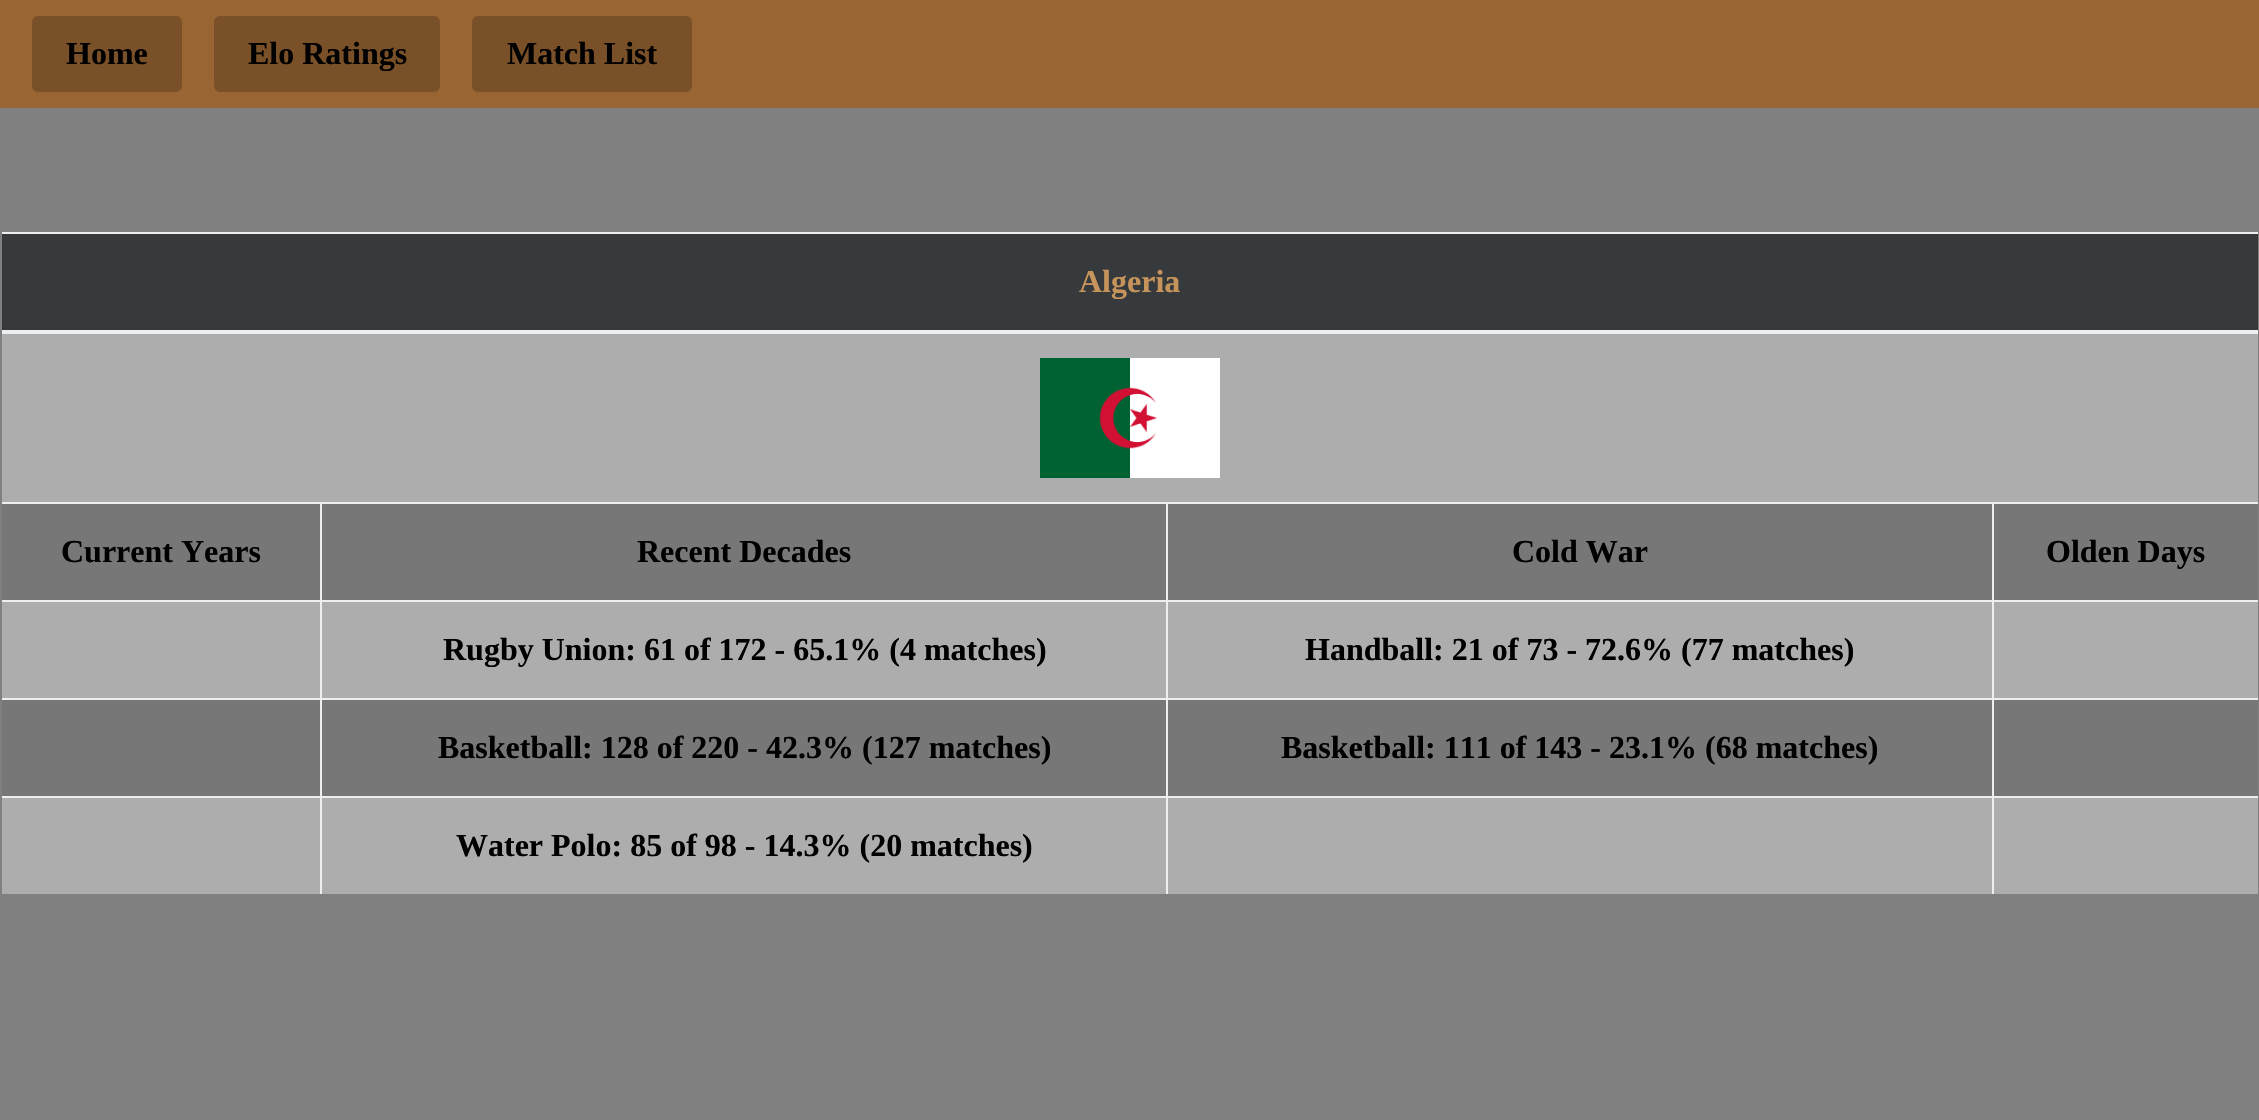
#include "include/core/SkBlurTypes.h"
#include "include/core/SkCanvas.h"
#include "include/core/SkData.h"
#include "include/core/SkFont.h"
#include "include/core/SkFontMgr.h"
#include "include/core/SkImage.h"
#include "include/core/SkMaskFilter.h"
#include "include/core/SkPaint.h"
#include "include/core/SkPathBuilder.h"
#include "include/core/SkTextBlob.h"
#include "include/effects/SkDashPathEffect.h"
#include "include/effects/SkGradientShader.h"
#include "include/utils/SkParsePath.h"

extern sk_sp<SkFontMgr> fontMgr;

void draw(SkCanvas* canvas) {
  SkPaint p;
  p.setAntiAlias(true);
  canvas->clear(SkColorSetRGB(128, 128, 128));
  p.setColor(SkColorSetRGB(153, 102, 51));
  canvas->drawRect(SkRect::MakeLTRB(0, 0, 2259, 108), p);
  p.setColor(SkColorSetRGB(121, 80, 40));
  canvas->drawRoundRect(SkRect::MakeLTRB(33, 17, 181, 91), 5, 5, p);
  p.setStyle(SkPaint::kStroke_Style);
  p.setStrokeWidth(2);
  canvas->drawRoundRect(SkRect::MakeLTRB(33, 17, 181, 91), 5, 5, p);
  p.setStyle(SkPaint::kFill_Style);
  canvas->drawRoundRect(SkRect::MakeLTRB(215, 17, 439, 91), 5, 5, p);
  p.setStyle(SkPaint::kStroke_Style);
  canvas->drawRoundRect(SkRect::MakeLTRB(215, 17, 439, 91), 5, 5, p);
  p.setStyle(SkPaint::kFill_Style);
  canvas->drawRoundRect(SkRect::MakeLTRB(473, 17, 691, 91), 5, 5, p);
  p.setStyle(SkPaint::kStroke_Style);
  canvas->drawRoundRect(SkRect::MakeLTRB(473, 17, 691, 91), 5, 5, p);
  p.setStyle(SkPaint::kFill_Style);
  p.setColor(SkColorSetRGB(55, 58, 60));
  canvas->drawRect(SkRect::MakeLTRB(2, 234, 2258, 330), p);
  p.setColor(SkColorSetRGB(236, 238, 239));
  canvas->drawRect(SkRect::MakeLTRB(2, 232, 2258, 234), p);
  canvas->drawRect(SkRect::MakeLTRB(2, 330, 2258, 334), p);
  p.setColor(SkColorSetRGB(173, 173, 173));
  canvas->drawRect(SkRect::MakeLTRB(2, 334, 2258, 502), p);
  canvas->drawImageRect(SkImages::DeferredFromEncodedData(SkData::MakeFromFileName("images/1.png")), SkRect::MakeLTRB(1040, 358, 1220, 478), SkSamplingOptions());
  p.setColor(SkColorSetRGB(119, 119, 119));
  canvas->drawRect(SkRect::MakeLTRB(2, 504, 2258, 600), p);
  p.setColor(SkColorSetRGB(236, 238, 239));
  canvas->drawRect(SkRect::MakeLTRB(2, 502, 2258, 504), p);
  canvas->drawRect(SkRect::MakeLTRB(2, 600, 2258, 602), p);
  p.setColor(SkColorSetRGB(173, 173, 173));
  canvas->drawRect(SkRect::MakeLTRB(2, 602, 2258, 698), p);
  p.setColor(SkColorSetRGB(236, 238, 239));
  canvas->drawRect(SkRect::MakeLTRB(2, 698, 2258, 700), p);
  p.setColor(SkColorSetRGB(119, 119, 119));
  canvas->drawRect(SkRect::MakeLTRB(2, 700, 2258, 796), p);
  p.setColor(SkColorSetRGB(236, 238, 239));
  canvas->drawRect(SkRect::MakeLTRB(2, 796, 2258, 798), p);
  p.setColor(SkColorSetRGB(173, 173, 173));
  canvas->drawRect(SkRect::MakeLTRB(2, 798, 2258, 894), p);
  p.setColor(SkColorSetRGB(236, 238, 239));
  canvas->drawRect(SkRect::MakeLTRB(320, 796, 322, 894), p);
  canvas->drawRect(SkRect::MakeLTRB(320, 698, 322, 798), p);
  canvas->drawRect(SkRect::MakeLTRB(320, 600, 322, 700), p);
  canvas->drawRect(SkRect::MakeLTRB(320, 502, 322, 602), p);
  canvas->drawRect(SkRect::MakeLTRB(1166, 796, 1168, 894), p);
  canvas->drawRect(SkRect::MakeLTRB(1166, 698, 1168, 798), p);
  canvas->drawRect(SkRect::MakeLTRB(1166, 600, 1168, 700), p);
  canvas->drawRect(SkRect::MakeLTRB(1166, 502, 1168, 602), p);
  canvas->drawRect(SkRect::MakeLTRB(1992, 796, 1994, 894), p);
  canvas->drawRect(SkRect::MakeLTRB(1992, 698, 1994, 798), p);
  canvas->drawRect(SkRect::MakeLTRB(1992, 600, 1994, 700), p);
  canvas->drawRect(SkRect::MakeLTRB(1992, 502, 1994, 602), p);
  SkFont font1(fontMgr->matchFamilyStyle("Liberation Serif", SkFontStyle::Bold()), 32);
  font1.setSubpixel(true);
  p.setColor(SK_ColorBLACK);
  canvas->drawString("Home", 66, 64, font1, p);
  canvas->drawString("Elo Ratings", 248, 64, font1, p);
  canvas->drawString("Match List", 507, 64, font1, p);
  p.setColor(SkColorSetRGB(198, 148, 91));
  canvas->drawString("Algeria", 1079, 292, font1, p);
  p.setColor(SK_ColorBLACK);
  canvas->drawString("Current Years", 61, 562, font1, p);
  canvas->drawString("Recent Decades", 637, 562, font1, p);
  canvas->drawString("Cold War", 1512, 562, font1, p);
  canvas->drawString("Olden Days", 2046, 562, font1, p);
  canvas->drawString("Rugby Union: 61 of 172 - 65.1% (4 matches)", 443, 660, font1, p);
  canvas->drawString("Handball: 21 of 73 - 72.6% (77 matches)", 1305, 660, font1, p);
  canvas->drawString("Basketball: 128 of 220 - 42.3% (127 matches)", 438, 758, font1, p);
  canvas->drawString("Basketball: 111 of 143 - 23.1% (68 matches)", 1281, 758, font1, p);
  canvas->drawString("Water Polo: 85 of 98 - 14.3% (20 matches)", 456, 856, font1, p);
}
